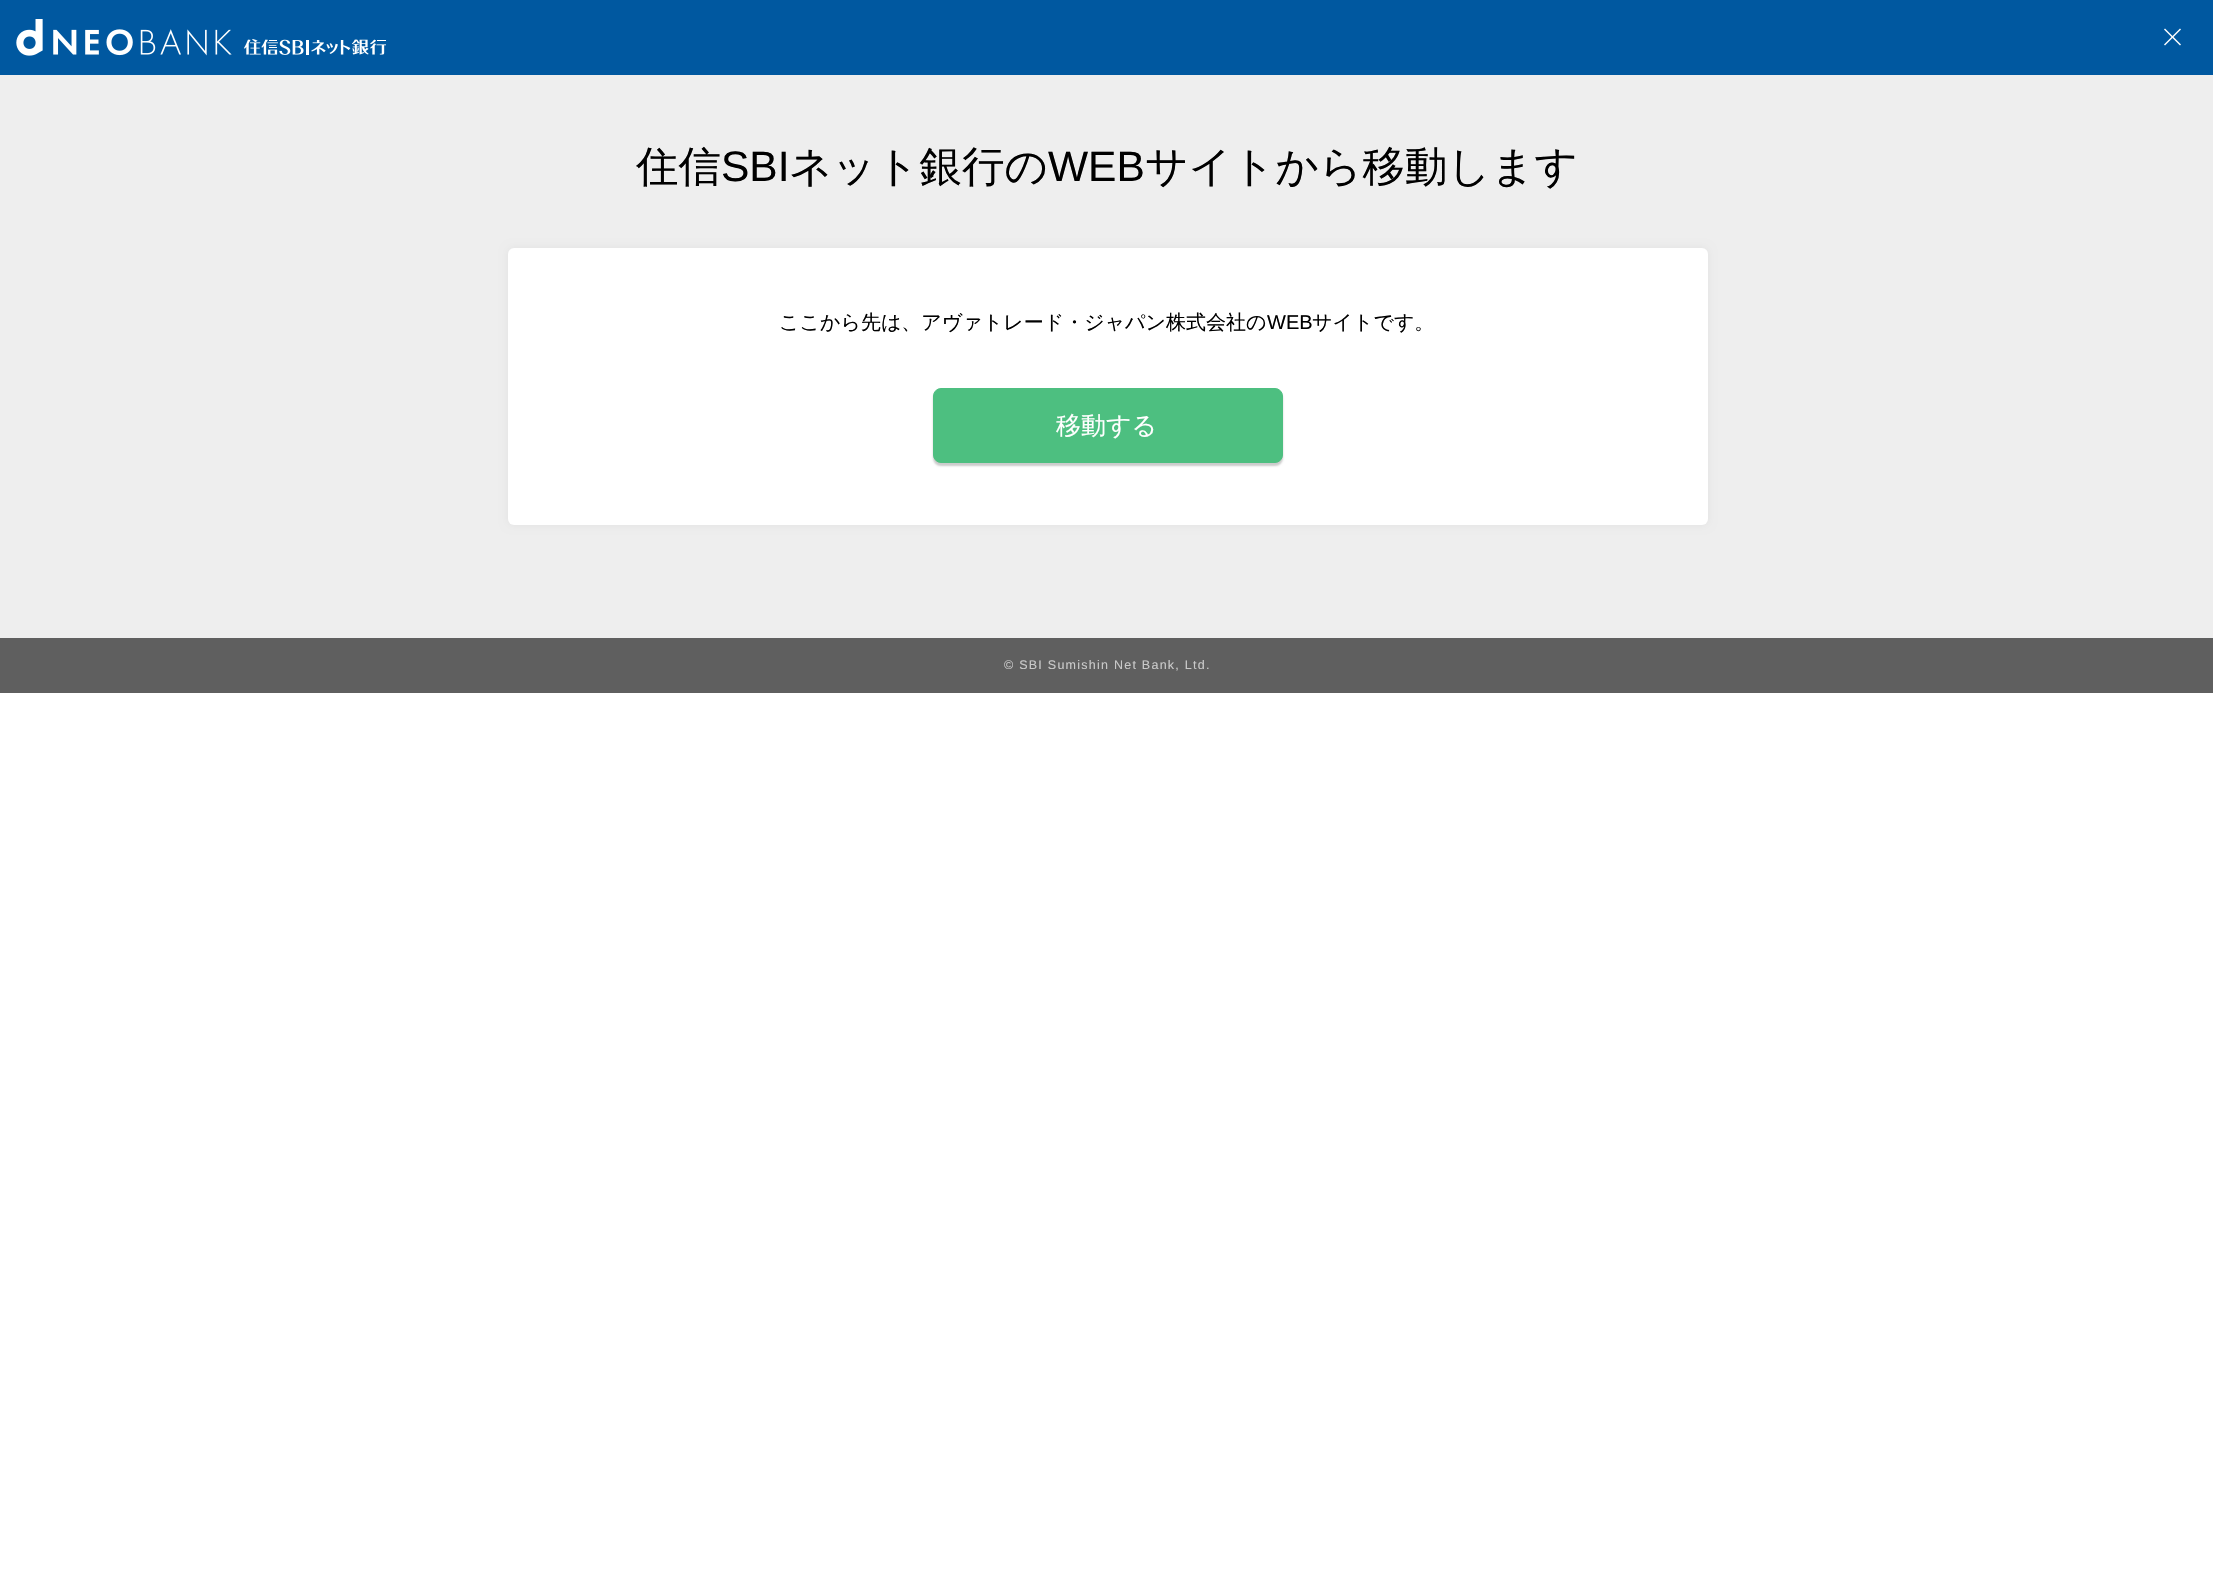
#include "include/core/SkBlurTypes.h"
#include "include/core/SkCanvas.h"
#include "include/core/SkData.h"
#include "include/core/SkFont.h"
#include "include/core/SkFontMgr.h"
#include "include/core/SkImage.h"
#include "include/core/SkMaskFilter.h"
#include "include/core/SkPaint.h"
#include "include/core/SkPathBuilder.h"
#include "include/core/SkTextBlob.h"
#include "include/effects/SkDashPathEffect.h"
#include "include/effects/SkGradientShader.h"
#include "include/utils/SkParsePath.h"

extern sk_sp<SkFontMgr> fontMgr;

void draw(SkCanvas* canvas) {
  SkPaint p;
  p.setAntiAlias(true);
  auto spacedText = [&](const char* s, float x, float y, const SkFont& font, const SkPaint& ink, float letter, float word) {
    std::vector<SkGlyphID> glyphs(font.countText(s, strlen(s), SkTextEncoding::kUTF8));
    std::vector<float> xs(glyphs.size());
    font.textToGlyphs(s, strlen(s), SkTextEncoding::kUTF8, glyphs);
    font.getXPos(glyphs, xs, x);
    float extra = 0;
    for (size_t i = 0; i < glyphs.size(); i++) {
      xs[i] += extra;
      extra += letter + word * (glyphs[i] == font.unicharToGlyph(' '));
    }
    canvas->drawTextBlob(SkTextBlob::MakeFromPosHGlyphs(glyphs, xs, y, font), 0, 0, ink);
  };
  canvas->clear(SK_ColorWHITE);
  p.setColor(SkColorSetRGB(0, 88, 160));
  canvas->drawRect(SkRect::MakeLTRB(0, 0, 2213, 75), p);
  canvas->drawImageRect(SkImages::DeferredFromEncodedData(SkData::MakeFromFileName("images/1.png")), SkRect::MakeLTRB(16, 19, 386, 56), SkSamplingOptions());
  p.setColor(SK_ColorWHITE);
  canvas->drawPath(SkPathBuilder().moveTo(2164, 44.5f).lineTo(2180, 28.5f).lineTo(2181, 29.5f).lineTo(2165, 45.5f).close().detach(), p);
  canvas->drawPath(SkPathBuilder().moveTo(2165, 28.5f).lineTo(2181, 44.5f).lineTo(2180, 45.5f).lineTo(2164, 29.5f).close().detach(), p);
  p.setColor(SkColorSetRGB(238, 238, 238));
  canvas->drawRect(SkRect::MakeLTRB(0, 75, 2213, 638), p);
  p.setColor(SkColorSetARGB(13, 6, 0, 1));
  p.setMaskFilter(SkMaskFilter::MakeBlur(kNormal_SkBlurStyle, 4));
  canvas->drawRoundRect(SkRect::MakeLTRB(508, 248, 1708, 525), 6, 6, p);
  p.setMaskFilter(nullptr);
  p.setColor(SK_ColorWHITE);
  canvas->drawRoundRect(SkRect::MakeLTRB(508, 248, 1708, 525), 6, 6, p);
  p.setColor(SkColorSetRGB(204, 204, 204));
  p.setMaskFilter(SkMaskFilter::MakeBlur(kNormal_SkBlurStyle, 1));
  canvas->drawRoundRect(SkRect::MakeLTRB(933, 391, 1283, 466), 8, 8, p);
  p.setMaskFilter(nullptr);
  p.setColor(SkColorSetRGB(77, 191, 128));
  canvas->drawRoundRect(SkRect::MakeLTRB(933.5f, 388.5f, 1282.5f, 462.5f), 7.5f, 7.5f, p);
  p.setStyle(SkPaint::kStroke_Style);
  p.setStrokeWidth(1);
  canvas->drawRoundRect(SkRect::MakeLTRB(933.5f, 388.5f, 1282.5f, 462.5f), 7.5f, 7.5f, p);
  p.setStyle(SkPaint::kFill_Style);
  p.setColor(SkColorSetRGB(95, 95, 95));
  canvas->drawRect(SkRect::MakeLTRB(0, 638, 2213, 693), p);
  SkFont font1(fontMgr->matchFamilyStyle("WenQuanYi Zen Hei", SkFontStyle(500, SkFontStyle::kNormal_Width, SkFontStyle::kUpright_Slant)), 42.5f);
  font1.setSubpixel(true);
  p.setColor(SK_ColorBLACK);
  canvas->drawString("住信", 636, 181, font1, p);
  SkFont font2(fontMgr->matchFamilyStyle("Liberation Sans", SkFontStyle::Normal()), 42.5f);
  font2.setSubpixel(true);
  canvas->drawString("SBI", 721, 181, font2, p);
  canvas->drawString("ネット銀行の", 789, 181, font1, p);
  canvas->drawString("WEB", 1048, 181, font2, p);
  canvas->drawString("サイトから移動します", 1145, 181, font1, p);
  SkFont font3(fontMgr->matchFamilyStyle("WenQuanYi Zen Hei", SkFontStyle(500, SkFontStyle::kNormal_Width, SkFontStyle::kUpright_Slant)), 20);
  font3.setSubpixel(true);
  canvas->drawString("ここから先は、アヴァトレード・ジャパン株式会社の", 779, 329, font3, p);
  SkFont font4(fontMgr->matchFamilyStyle("Liberation Sans", SkFontStyle::Normal()), 20);
  font4.setSubpixel(true);
  canvas->drawString("WEB", 1267, 329, font4, p);
  canvas->drawString("サイトです。", 1312, 329, font3, p);
  SkFont font5(fontMgr->matchFamilyStyle("WenQuanYi Zen Hei", SkFontStyle(500, SkFontStyle::kNormal_Width, SkFontStyle::kUpright_Slant)), 25);
  font5.setSubpixel(true);
  p.setColor(SK_ColorWHITE);
  canvas->drawString("移動する", 1056, 434, font5, p);
  SkFont font6(fontMgr->matchFamilyStyle("Liberation Sans", SkFontStyle::Normal()), 12.5f);
  font6.setSubpixel(true);
  p.setColor(SkColorSetRGB(201, 201, 201));
  spacedText("© SBI Sumishin Net Bank, Ltd.", 1004, 669, font6, p, 1.25f, 0);
}
